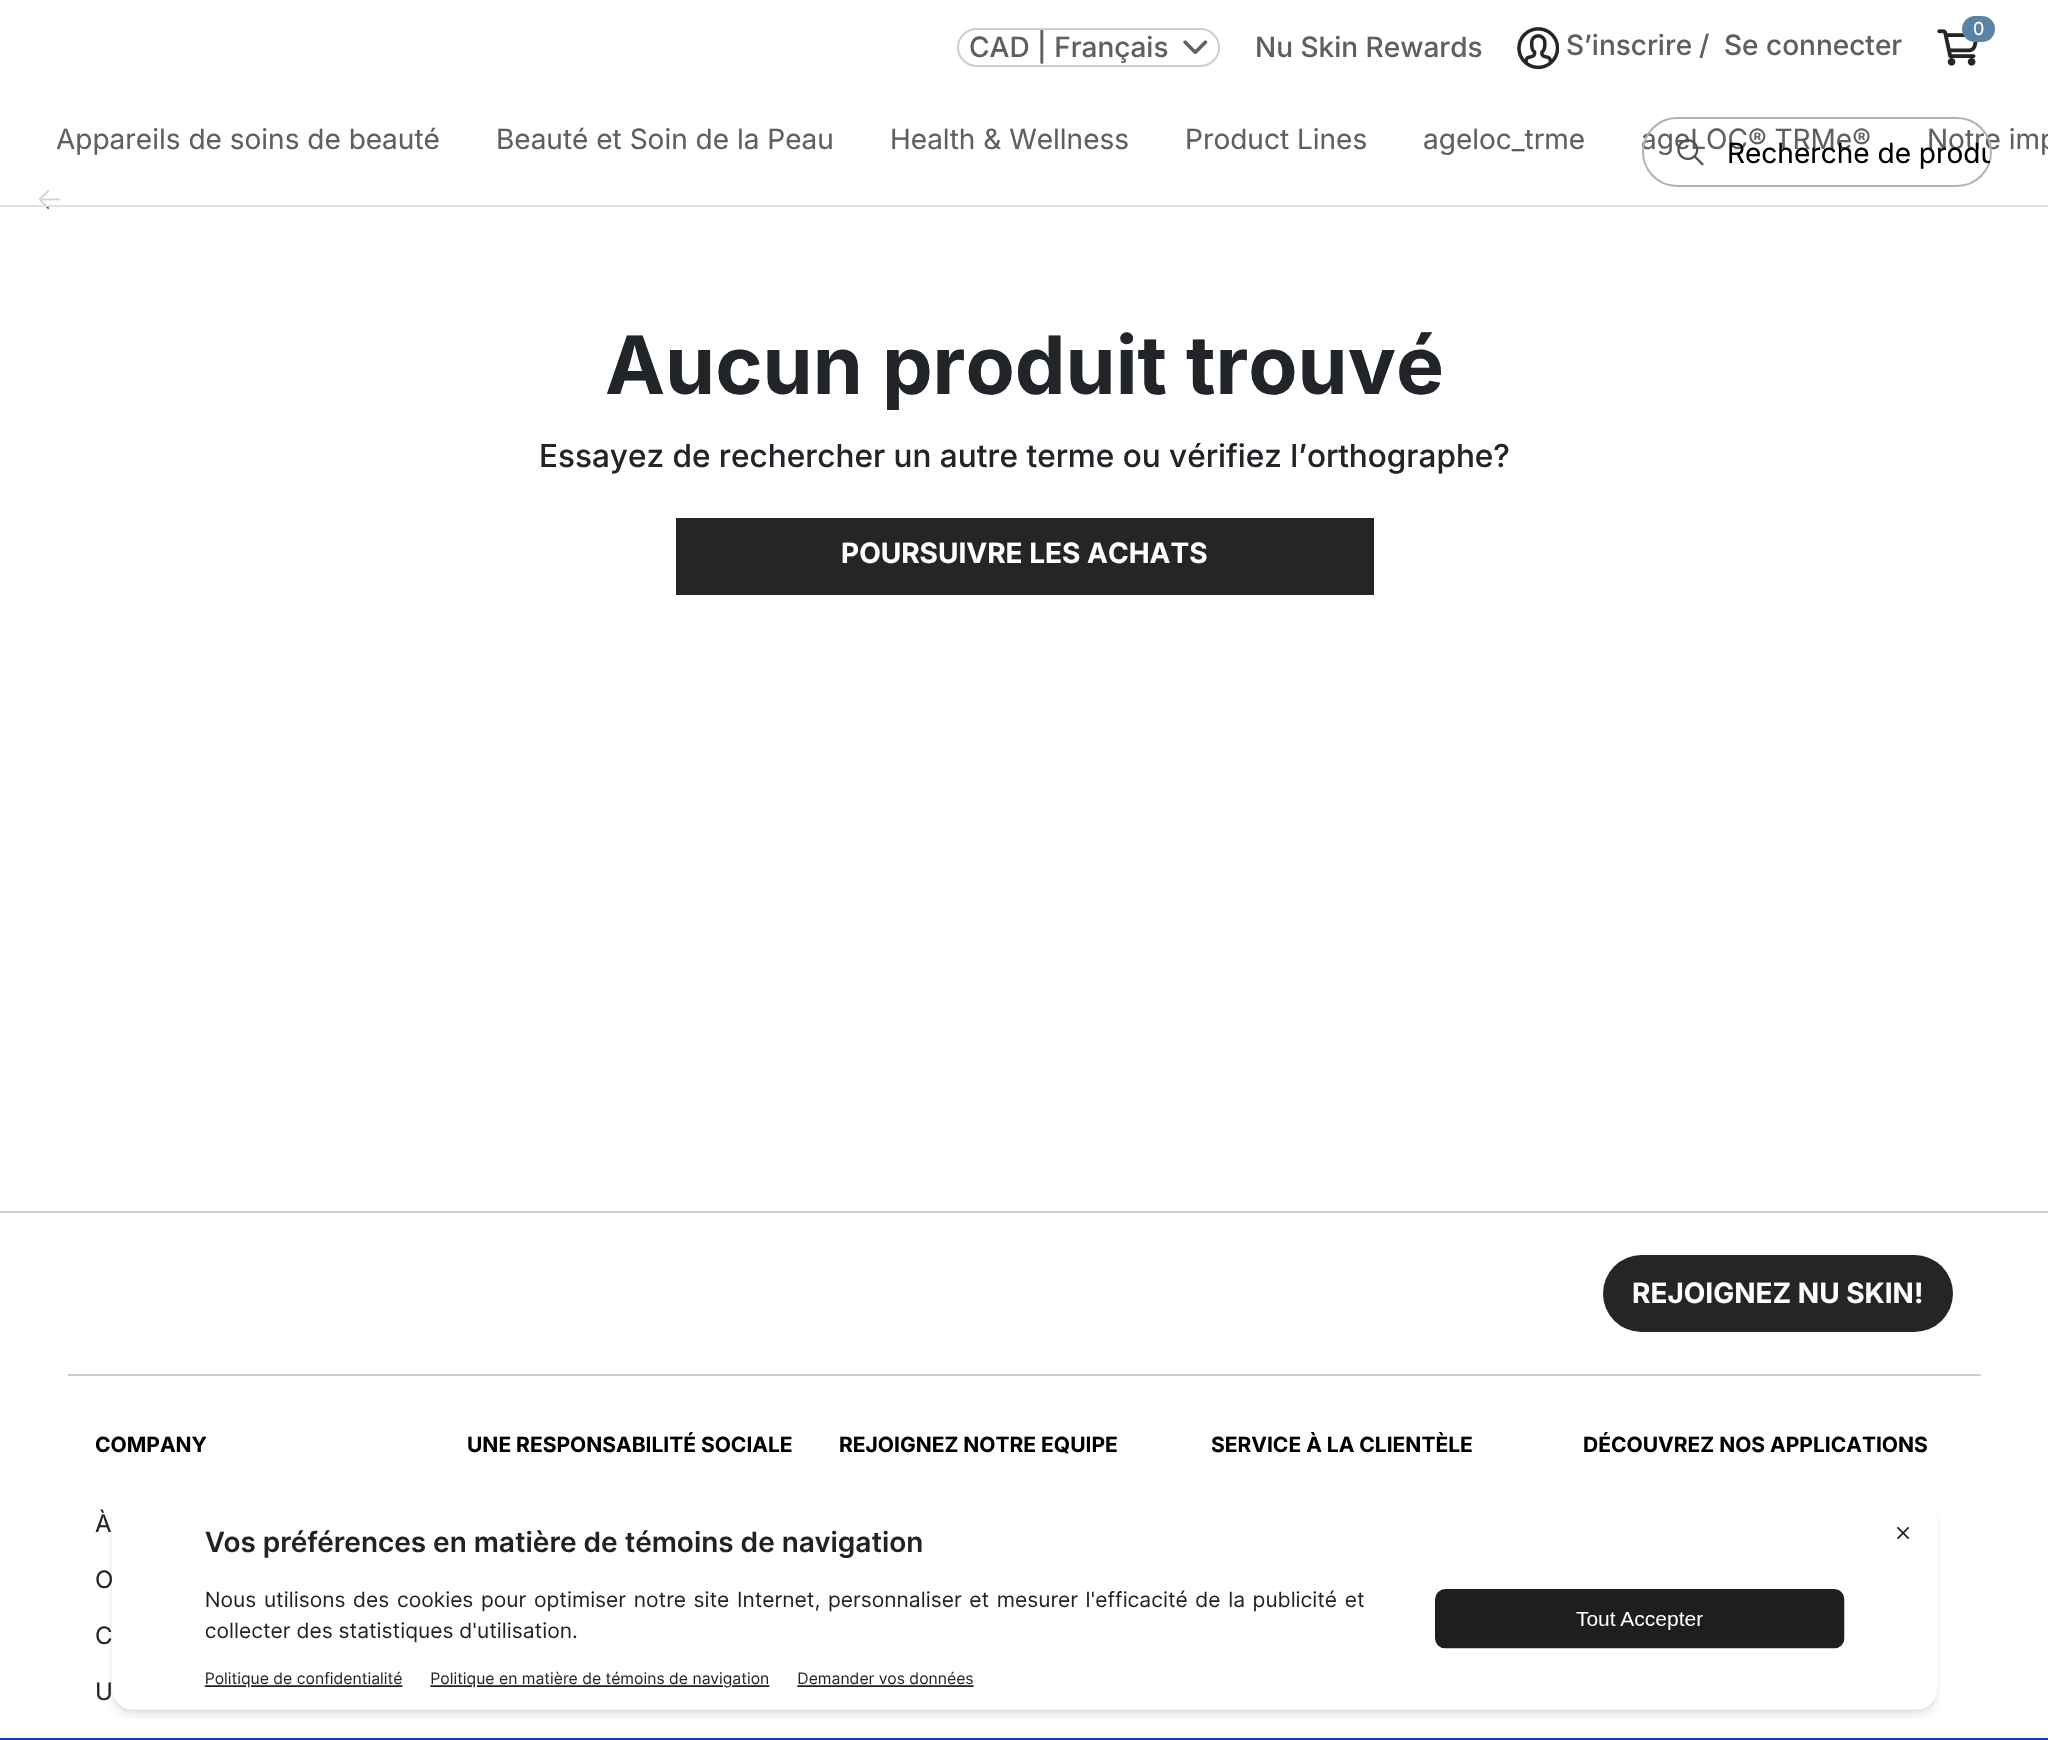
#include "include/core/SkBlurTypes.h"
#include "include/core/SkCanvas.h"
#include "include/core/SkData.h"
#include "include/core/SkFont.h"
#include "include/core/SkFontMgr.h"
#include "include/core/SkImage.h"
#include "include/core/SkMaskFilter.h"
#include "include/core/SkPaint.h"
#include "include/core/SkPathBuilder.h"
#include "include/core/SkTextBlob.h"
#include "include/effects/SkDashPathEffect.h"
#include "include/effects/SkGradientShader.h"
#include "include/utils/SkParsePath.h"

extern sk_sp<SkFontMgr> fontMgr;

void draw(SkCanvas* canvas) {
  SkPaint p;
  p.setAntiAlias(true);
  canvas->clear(SK_ColorWHITE);
  canvas->drawImageRect(SkImages::DeferredFromEncodedData(SkData::MakeFromFileName("images/5.png")), SkRect::MakeLTRB(38, 189, 60, 209), SkSamplingOptions());
  {
    const SkColor colors[] = {SkColorSetARGB(230, 255, 255, 255), SkColorSetARGB(179, 255, 255, 255)};
    const float stops[] = {0, 1};
    const SkPoint ends[] = {{1025, 0}, {1025, 207}};
    p.setShader(SkGradientShader::MakeLinear(ends, colors, stops, 2, SkTileMode::kClamp));
    p.setAlpha(255);
  }
  canvas->drawRect(SkRect::MakeLTRB(38, 189, 60, 205), p);
  p.setStyle(SkPaint::kStroke_Style);
  p.setStrokeWidth(2);
  p.setShader(nullptr);
  p.setColor(SkColorSetRGB(204, 204, 204));
  canvas->drawRoundRect(SkRect::MakeLTRB(958, 29, 1219, 66), 18.5f, 18.5f, p);
  canvas->drawImageRect(SkImages::DeferredFromEncodedData(SkData::MakeFromFileName("images/1.png")), SkRect::MakeLTRB(1183, 40, 1208, 54), SkSamplingOptions());
  canvas->drawImageRect(SkImages::DeferredFromEncodedData(SkData::MakeFromFileName("images/2.png")), SkRect::MakeLTRB(1517, 27, 1559, 70), SkSamplingOptions());
  canvas->drawImageRect(SkImages::DeferredFromEncodedData(SkData::MakeFromFileName("images/3.png")), SkRect::MakeLTRB(1937, 29, 1978, 66), SkSamplingOptions());
  p.setStyle(SkPaint::kFill_Style);
  p.setColor(SkColorSetRGB(91, 129, 165));
  canvas->drawRoundRect(SkRect::MakeLTRB(1962, 16, 1995, 42), 13, 13, p);
  p.setColor(SkColorSetRGB(224, 224, 224));
  canvas->drawRect(SkRect::MakeLTRB(0, 205, 2048, 207), p);
  p.setColor(SkColorSetRGB(37, 37, 37));
  canvas->drawRect(SkRect::MakeLTRB(676, 518, 1374, 595), p);
  p.setColor(SkColorSetRGB(204, 204, 204));
  canvas->drawRect(SkRect::MakeLTRB(0, 1211, 2048, 1213), p);
  p.setColor(SkColorSetRGB(37, 37, 37));
  canvas->drawRoundRect(SkRect::MakeLTRB(1603, 1255, 1953, 1332), 38.5f, 38.5f, p);
  p.setColor(SkColorSetRGB(204, 204, 204));
  canvas->drawRect(SkRect::MakeLTRB(68, 1374, 1981, 1376), p);
  p.setColor(SkColorSetRGB(18, 61, 186));
  canvas->drawRect(SkRect::MakeLTRB(0, 1738, 2048, 1740), p);
  SkFont font1(fontMgr->matchFamilyStyle("Inter", SkFontStyle(500, SkFontStyle::kNormal_Width, SkFontStyle::kUpright_Slant)), 28);
  font1.setSubpixel(true);
  p.setColor(SkColorSetRGB(95, 95, 95));
  canvas->drawString("CAD | Français", 969, 57, font1, p);
  canvas->drawString("Nu Skin Rewards", 1255, 57, font1, p);
  canvas->drawString("S’inscrire", 1566, 55, font1, p);
  canvas->drawString("/", 1699, 55, font1, p);
  canvas->drawString("Se connecter", 1724, 55, font1, p);
  SkFont font2(fontMgr->matchFamilyStyle("Inter", SkFontStyle::Normal()), 18);
  font2.setSubpixel(true);
  p.setColor(SK_ColorWHITE);
  canvas->drawString("0", 1973, 35, font2, p);
  SkFont font3(fontMgr->matchFamilyStyle("Inter", SkFontStyle::Normal()), 28);
  font3.setSubpixel(true);
  p.setColor(SkColorSetRGB(95, 95, 95));
  canvas->drawString("Appareils de soins de beauté", 56, 149, font3, p);
  canvas->drawString("Beauté et Soin de la Peau", 496, 149, font3, p);
  canvas->drawString("Health & Wellness", 890, 149, font3, p);
  canvas->drawString("Product Lines", 1185, 149, font3, p);
  canvas->drawString("ageloc_trme", 1423, 149, font3, p);
  canvas->drawString("ageLOC® TRMe®", 1641, 149, font3, p);
  canvas->drawString("Notre imp", 1927, 149, font3, p);
  p.setStyle(SkPaint::kStroke_Style);
  p.setColor(SkColorSetRGB(178, 178, 178));
  canvas->drawRoundRect(SkRect::MakeLTRB(1643, 118, 1991, 186), 34, 34, p);
  canvas->drawImageRect(SkImages::DeferredFromEncodedData(SkData::MakeFromFileName("images/4.png")), SkRect::MakeLTRB(1677, 139, 1704, 166), SkSamplingOptions());
  canvas->save();
  canvas->clipRect(SkRect::MakeLTRB(1727, 135, 1990, 170));
  p.setStyle(SkPaint::kFill_Style);
  p.setColor(SK_ColorBLACK);
  canvas->drawString("Recherche de produ", 1727, 163, font3, p);
  canvas->restore();
  canvas->save();
  canvas->clipRect(SkRect::MakeLTRB(28, 319, 2021, 410));
  SkFont font4(fontMgr->matchFamilyStyle("Inter", SkFontStyle::Bold()), 80.5f);
  font4.setSubpixel(true);
  p.setColor(SkColorSetRGB(33, 37, 41));
  canvas->drawString("Aucun produit trouvé", 605, 394, font4, p);
  canvas->restore();
  SkFont font5(fontMgr->matchFamilyStyle("Inter", SkFontStyle(500, SkFontStyle::kNormal_Width, SkFontStyle::kUpright_Slant)), 31.5f);
  font5.setSubpixel(true);
  canvas->drawString("Essayez de rechercher un autre terme ou vérifiez l’orthographe?", 539, 467, font5, p);
  SkFont font6(fontMgr->matchFamilyStyle("Inter", SkFontStyle::Bold()), 28);
  font6.setSubpixel(true);
  p.setColor(SK_ColorWHITE);
  canvas->drawString("POURSUIVRE LES ACHATS", 841, 563, font6, p);
  canvas->drawString("REJOIGNEZ NU SKIN!", 1632, 1303, font6, p);
  SkFont font7(fontMgr->matchFamilyStyle("Inter", SkFontStyle::Bold()), 21);
  font7.setSubpixel(true);
  p.setColor(SK_ColorBLACK);
  canvas->drawString("COMPANY", 95, 1452, font7, p);
  SkFont font8(fontMgr->matchFamilyStyle("Inter", SkFontStyle::Normal()), 24);
  font8.setSubpixel(true);
  p.setColor(SkColorSetRGB(33, 37, 41));
  canvas->drawString("À", 95, 1532, font8, p);
  canvas->drawString("O", 95, 1588, font8, p);
  canvas->drawString("C", 95, 1644, font8, p);
  canvas->drawString("U", 95, 1700, font8, p);
  p.setColor(SK_ColorBLACK);
  canvas->drawString("UNE RESPONSABILITÉ SOCIALE", 467, 1452, font7, p);
  canvas->drawString("REJOIGNEZ NOTRE EQUIPE", 839, 1452, font7, p);
  canvas->drawString("SERVICE À LA CLIENTÈLE", 1211, 1452, font7, p);
  canvas->drawString("DÉCOUVREZ NOS APPLICATIONS", 1583, 1452, font7, p);
  canvas->drawImageRect(SkImages::DeferredFromEncodedData(SkData::MakeFromFileName("images/6.png")), SkRect::MakeLTRB(109, 1513, 1940, 1719), SkSamplingOptions());
}
